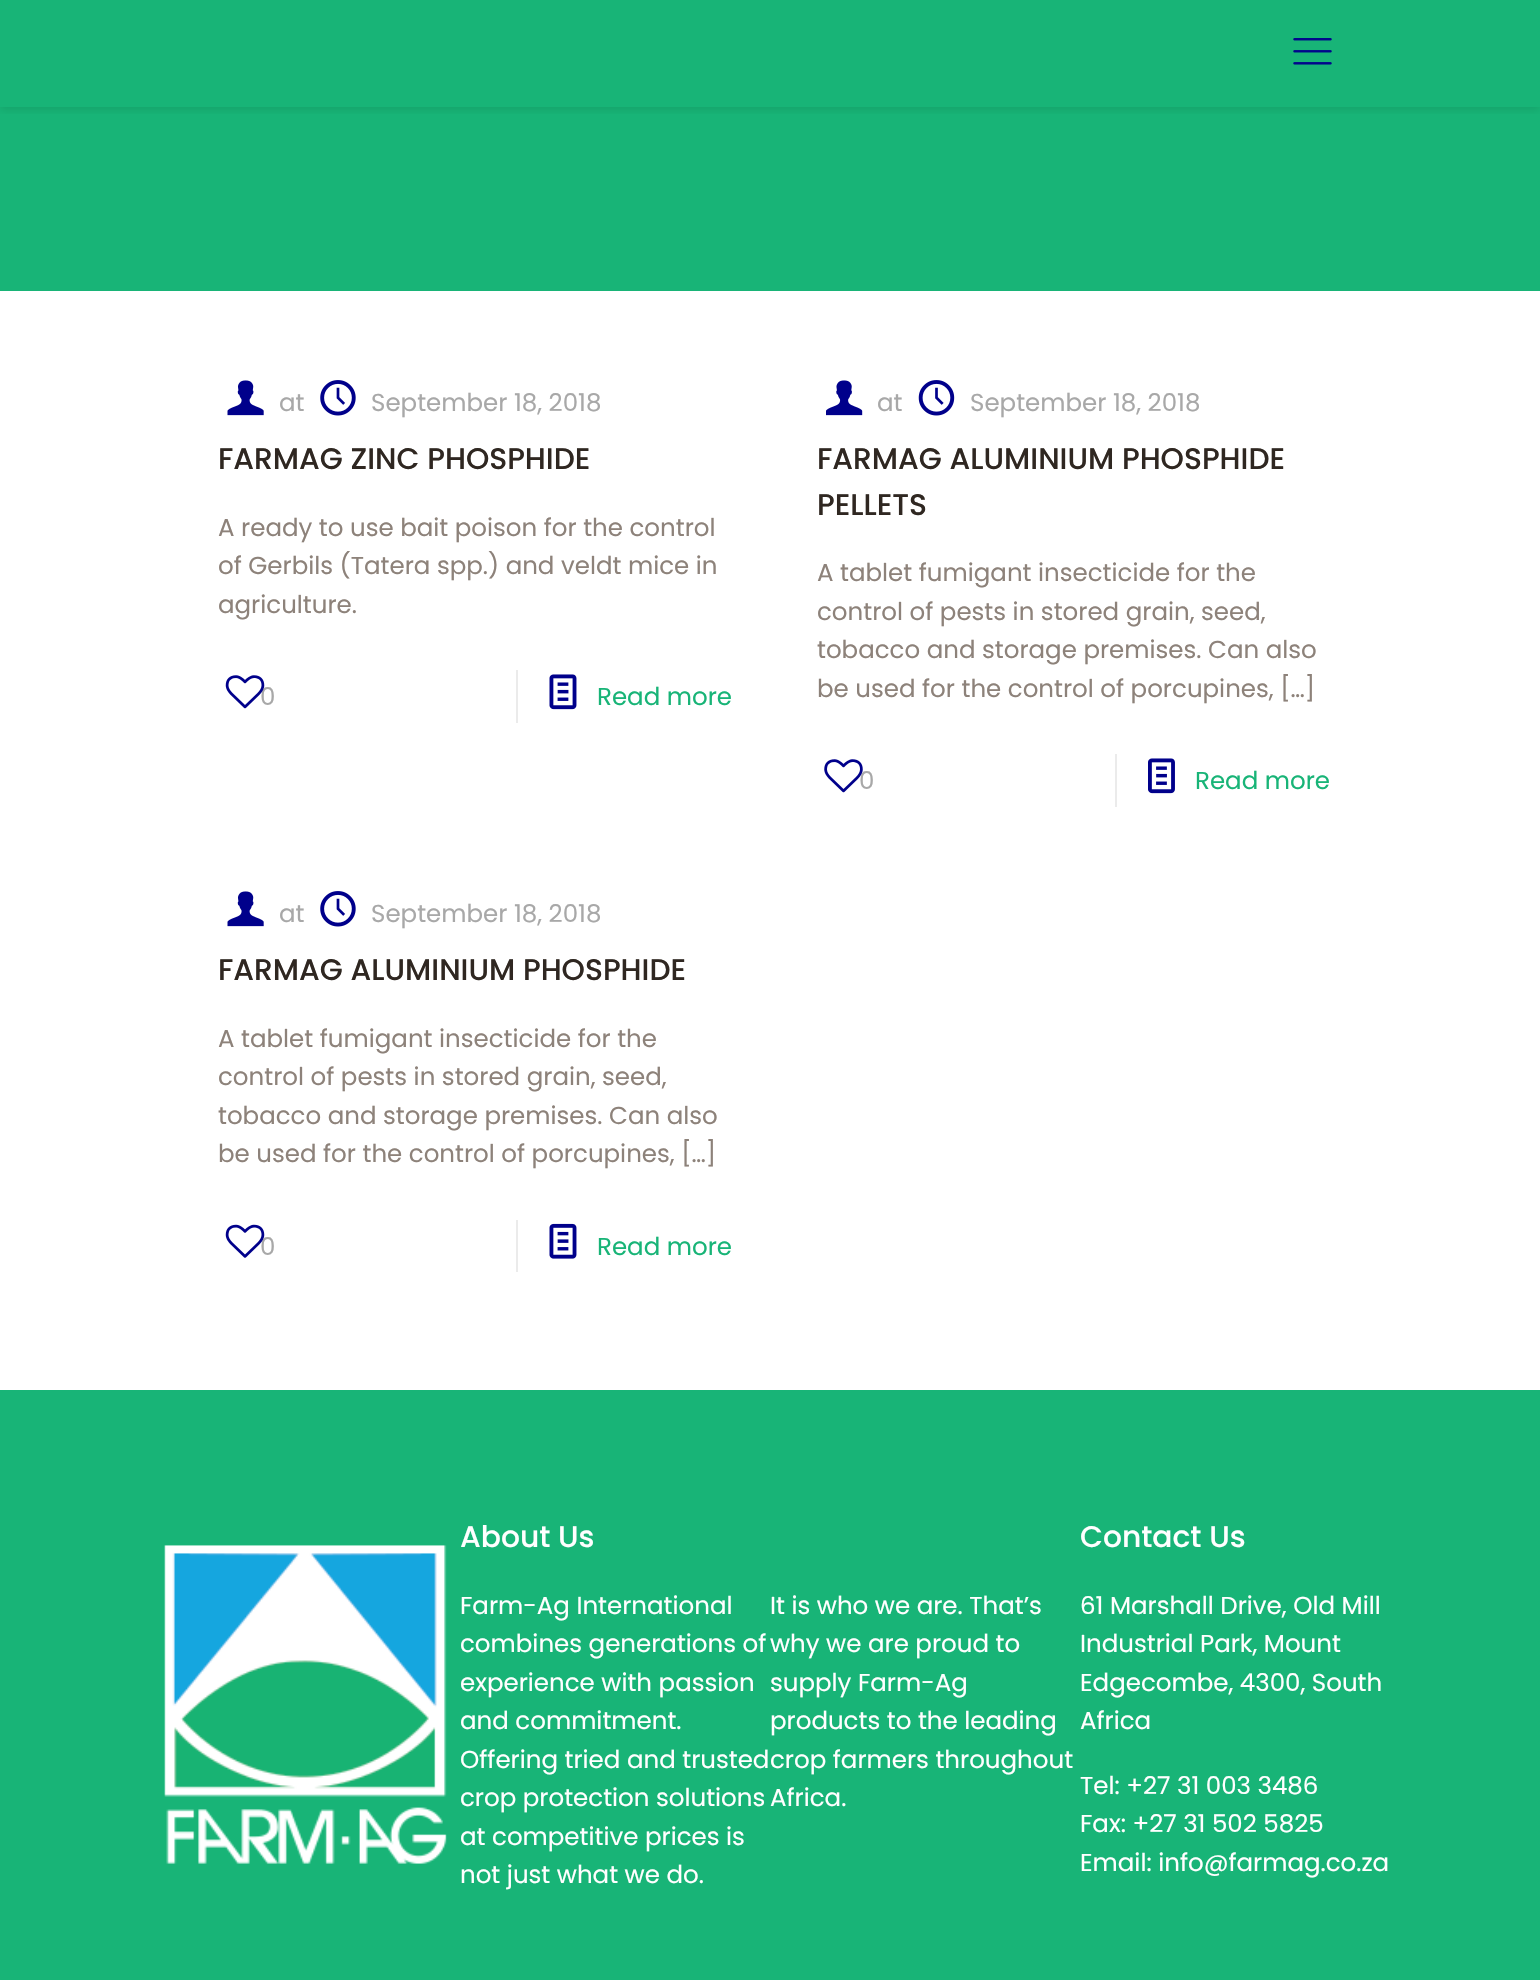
#include "include/core/SkBlurTypes.h"
#include "include/core/SkCanvas.h"
#include "include/core/SkData.h"
#include "include/core/SkFont.h"
#include "include/core/SkFontMgr.h"
#include "include/core/SkImage.h"
#include "include/core/SkMaskFilter.h"
#include "include/core/SkPaint.h"
#include "include/core/SkPathBuilder.h"
#include "include/core/SkTextBlob.h"
#include "include/effects/SkDashPathEffect.h"
#include "include/effects/SkGradientShader.h"
#include "include/utils/SkParsePath.h"

extern sk_sp<SkFontMgr> fontMgr;

void draw(SkCanvas* canvas) {
  SkPaint p;
  p.setAntiAlias(true);
  canvas->clear(SK_ColorWHITE);
  p.setColor(SkColorSetRGB(24, 180, 119));
  canvas->drawRect(SkRect::MakeLTRB(0, 0, 1540, 291), p);
  canvas->save();
  canvas->clipRect(SkRect::MakeLTRB(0, 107, 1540, 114));
  p.setColor(SkColorSetARGB(26, 1, 5, 4));
  p.setMaskFilter(SkMaskFilter::MakeBlur(kNormal_SkBlurStyle, 4.5f));
  canvas->drawRect(SkRect::MakeLTRB(0, 4, 1540, 110), p);
  p.setMaskFilter(nullptr);
  canvas->restore();
  p.setColor(SkColorSetARGB(247, 24, 180, 119));
  canvas->drawRect(SkRect::MakeLTRB(4, 106, 1536, 107), p);
  canvas->drawImageRect(SkImages::DeferredFromEncodedData(SkData::MakeFromFileName("images/1.png")), SkRect::MakeLTRB(1293, 38, 1332, 65), SkSamplingOptions());
  canvas->drawImageRect(SkImages::DeferredFromEncodedData(SkData::MakeFromFileName("images/2.png")), SkRect::MakeLTRB(227, 380, 264, 416), SkSamplingOptions());
  canvas->drawImageRect(SkImages::DeferredFromEncodedData(SkData::MakeFromFileName("images/3.png")), SkRect::MakeLTRB(320, 380, 356, 416), SkSamplingOptions());
  p.setColor(SkColorSetRGB(235, 235, 235));
  canvas->drawRect(SkRect::MakeLTRB(516, 670, 518, 723), p);
  canvas->drawImageRect(SkImages::DeferredFromEncodedData(SkData::MakeFromFileName("images/5.png")), SkRect::MakeLTRB(549, 674, 577, 710), SkSamplingOptions());
  canvas->drawImageRect(SkImages::DeferredFromEncodedData(SkData::MakeFromFileName("images/6.png")), SkRect::MakeLTRB(826, 380, 863, 416), SkSamplingOptions());
  canvas->drawImageRect(SkImages::DeferredFromEncodedData(SkData::MakeFromFileName("images/7.png")), SkRect::MakeLTRB(918, 380, 955, 416), SkSamplingOptions());
  canvas->drawRect(SkRect::MakeLTRB(1115, 754, 1117, 807), p);
  canvas->drawImageRect(SkImages::DeferredFromEncodedData(SkData::MakeFromFileName("images/9.png")), SkRect::MakeLTRB(1148, 758, 1175, 794), SkSamplingOptions());
  canvas->drawImageRect(SkImages::DeferredFromEncodedData(SkData::MakeFromFileName("images/2.png")), SkRect::MakeLTRB(227, 891, 264, 927), SkSamplingOptions());
  canvas->drawImageRect(SkImages::DeferredFromEncodedData(SkData::MakeFromFileName("images/3.png")), SkRect::MakeLTRB(320, 891, 356, 927), SkSamplingOptions());
  canvas->drawRect(SkRect::MakeLTRB(516, 1220, 518, 1272), p);
  canvas->drawImageRect(SkImages::DeferredFromEncodedData(SkData::MakeFromFileName("images/11.png")), SkRect::MakeLTRB(549, 1223, 577, 1259), SkSamplingOptions());
  p.setColor(SkColorSetRGB(24, 180, 119));
  canvas->drawRect(SkRect::MakeLTRB(0, 1390, 1540, 1980), p);
  canvas->drawImageRect(SkImages::DeferredFromEncodedData(SkData::MakeFromFileName("images/12.png")), SkRect::MakeLTRB(164, 1545, 447, 1864), SkSamplingOptions());
  SkFont font1(fontMgr->matchFamilyStyle("Poppins", SkFontStyle::Normal()), 24.5f);
  font1.setSubpixel(true);
  p.setColor(SkColorSetRGB(168, 168, 168));
  canvas->drawString("at", 279, 411, font1, p);
  canvas->drawString("September 18, 2018", 371, 411, font1, p);
  SkFont font2(fontMgr->matchFamilyStyle("Poppins", SkFontStyle(500, SkFontStyle::kNormal_Width, SkFontStyle::kUpright_Slant)), 29.75f);
  font2.setSubpixel(true);
  p.setColor(SkColorSetRGB(47, 39, 33));
  canvas->drawString("FARMAG ZINC PHOSPHIDE", 218, 469, font2, p);
  p.setColor(SkColorSetRGB(141, 130, 122));
  canvas->drawString("A ready to use bait poison for the control", 218, 536, font1, p);
  canvas->drawString("of Gerbils (Tatera spp.) and veldt mice in", 218, 574, font1, p);
  canvas->drawString("agriculture.", 218, 613, font1, p);
  p.setColor(SkColorSetRGB(168, 168, 168));
  canvas->drawString("0", 260, 705, font1, p);
  canvas->drawImageRect(SkImages::DeferredFromEncodedData(SkData::MakeFromFileName("images/4.png")), SkRect::MakeLTRB(225, 675, 265, 709), SkSamplingOptions());
  p.setColor(SkColorSetRGB(24, 180, 119));
  canvas->drawString("Read more", 597, 705, font1, p);
  p.setColor(SkColorSetRGB(168, 168, 168));
  canvas->drawString("at", 877, 411, font1, p);
  canvas->drawString("September 18, 2018", 970, 411, font1, p);
  p.setColor(SkColorSetRGB(47, 39, 33));
  canvas->drawString("FARMAG ALUMINIUM PHOSPHIDE", 817, 469, font2, p);
  canvas->drawString("PELLETS", 817, 515, font2, p);
  p.setColor(SkColorSetRGB(141, 130, 122));
  canvas->drawString("A tablet fumigant insecticide for the", 817, 581, font1, p);
  canvas->drawString("control of pests in stored grain, seed,", 817, 620, font1, p);
  canvas->drawString("tobacco and storage premises. Can also", 817, 658, font1, p);
  canvas->drawString("be used for the control of porcupines, […]", 817, 697, font1, p);
  p.setColor(SkColorSetRGB(168, 168, 168));
  canvas->drawString("0", 859, 789, font1, p);
  canvas->drawImageRect(SkImages::DeferredFromEncodedData(SkData::MakeFromFileName("images/8.png")), SkRect::MakeLTRB(824, 759, 863, 793), SkSamplingOptions());
  p.setColor(SkColorSetRGB(24, 180, 119));
  canvas->drawString("Read more", 1195, 789, font1, p);
  p.setColor(SkColorSetRGB(168, 168, 168));
  canvas->drawString("at", 279, 922, font1, p);
  canvas->drawString("September 18, 2018", 371, 922, font1, p);
  p.setColor(SkColorSetRGB(47, 39, 33));
  canvas->drawString("FARMAG ALUMINIUM PHOSPHIDE", 218, 980, font2, p);
  p.setColor(SkColorSetRGB(141, 130, 122));
  canvas->drawString("A tablet fumigant insecticide for the", 218, 1047, font1, p);
  canvas->drawString("control of pests in stored grain, seed,", 218, 1085, font1, p);
  canvas->drawString("tobacco and storage premises. Can also", 218, 1124, font1, p);
  canvas->drawString("be used for the control of porcupines, […]", 218, 1162, font1, p);
  p.setColor(SkColorSetRGB(168, 168, 168));
  canvas->drawString("0", 260, 1255, font1, p);
  canvas->drawImageRect(SkImages::DeferredFromEncodedData(SkData::MakeFromFileName("images/10.png")), SkRect::MakeLTRB(225, 1224, 265, 1258), SkSamplingOptions());
  p.setColor(SkColorSetRGB(24, 180, 119));
  canvas->drawString("Read more", 597, 1255, font1, p);
  p.setColor(SK_ColorWHITE);
  canvas->drawString("About Us", 460, 1547, font2, p);
  canvas->drawString("Farm-Ag International", 460, 1614, font1, p);
  canvas->drawString("combines generations of", 460, 1652, font1, p);
  canvas->drawString("experience with passion", 460, 1691, font1, p);
  canvas->drawString("and commitment.", 460, 1729, font1, p);
  canvas->drawString("Offering tried and trusted", 460, 1768, font1, p);
  canvas->drawString("crop protection solutions", 460, 1806, font1, p);
  canvas->drawString("at competitive prices is", 460, 1845, font1, p);
  canvas->drawString("not just what we do.", 460, 1883, font1, p);
  canvas->drawString("It is who we are. That’s", 770, 1614, font1, p);
  canvas->drawString("why we are proud to", 770, 1652, font1, p);
  canvas->drawString("supply Farm-Ag", 770, 1691, font1, p);
  canvas->drawString("products to the leading", 770, 1729, font1, p);
  canvas->drawString("crop farmers throughout", 770, 1768, font1, p);
  canvas->drawString("Africa.", 770, 1806, font1, p);
  canvas->drawString("Contact Us", 1080, 1547, font2, p);
  canvas->drawString("61 Marshall Drive, Old Mill", 1080, 1614, font1, p);
  canvas->drawString("Industrial Park, Mount", 1080, 1652, font1, p);
  canvas->drawString("Edgecombe, 4300, South", 1080, 1691, font1, p);
  canvas->drawString("Africa", 1080, 1729, font1, p);
  canvas->drawString("Tel: +27 31 003 3486", 1080, 1794, font1, p);
  canvas->drawString("Fax: +27 31 502 5825", 1080, 1832, font1, p);
  canvas->drawString("Email: info@farmag.co.za", 1080, 1871, font1, p);
}
